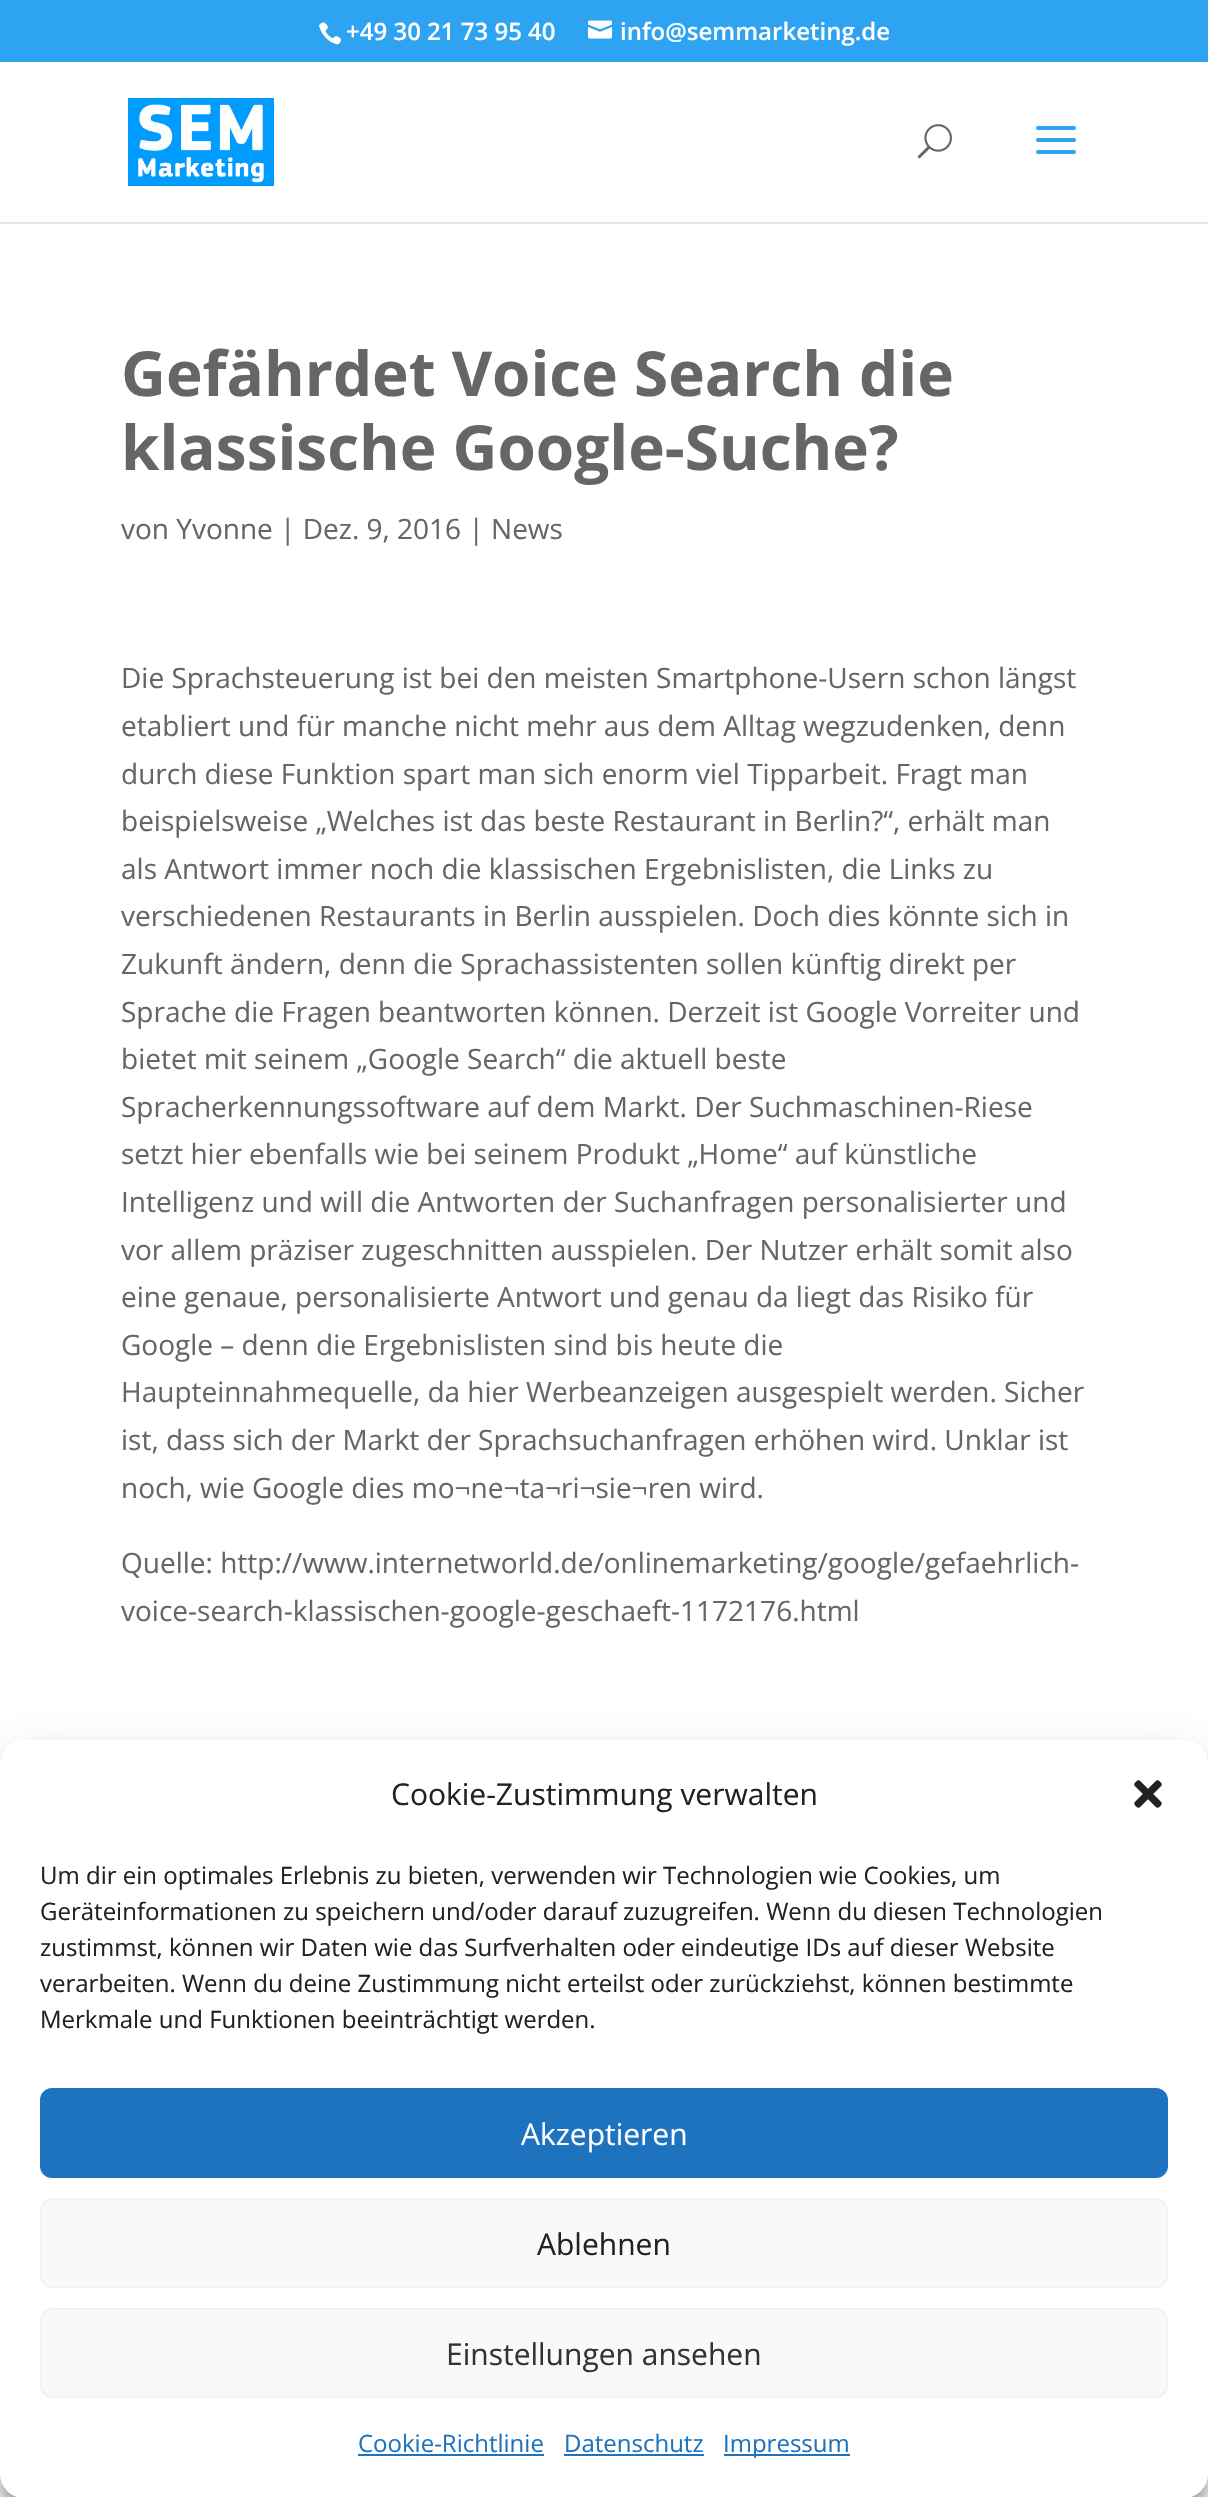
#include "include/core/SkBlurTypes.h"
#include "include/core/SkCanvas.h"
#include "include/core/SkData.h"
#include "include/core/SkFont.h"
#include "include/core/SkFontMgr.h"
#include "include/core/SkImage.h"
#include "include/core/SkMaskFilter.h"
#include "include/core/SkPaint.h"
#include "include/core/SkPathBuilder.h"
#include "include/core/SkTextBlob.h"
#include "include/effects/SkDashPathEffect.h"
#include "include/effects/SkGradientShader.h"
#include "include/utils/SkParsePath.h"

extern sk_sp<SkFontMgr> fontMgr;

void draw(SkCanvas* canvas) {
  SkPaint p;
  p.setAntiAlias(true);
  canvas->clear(SK_ColorWHITE);
  p.setColor(SkColorSetRGB(46, 163, 242));
  canvas->drawRect(SkRect::MakeLTRB(0, 0, 1208, 62), p);
  canvas->drawImageRect(SkImages::DeferredFromEncodedData(SkData::MakeFromFileName("images/1.png")), SkRect::MakeLTRB(319, 22, 341, 45), SkSamplingOptions());
  canvas->drawImageRect(SkImages::DeferredFromEncodedData(SkData::MakeFromFileName("images/2.png")), SkRect::MakeLTRB(588, 20, 612, 39), SkSamplingOptions());
  p.setColor(SkColorSetRGB(230, 230, 230));
  canvas->drawRect(SkRect::MakeLTRB(0, 222, 1208, 224), p);
  canvas->drawImageRect(SkImages::DeferredFromEncodedData(SkData::MakeFromFileName("images/3.png")), SkRect::MakeLTRB(128, 98, 274, 186), SkSamplingOptions());
  canvas->drawImageRect(SkImages::DeferredFromEncodedData(SkData::MakeFromFileName("images/4.png")), SkRect::MakeLTRB(917, 124, 952, 159), SkSamplingOptions());
  canvas->drawImageRect(SkImages::DeferredFromEncodedData(SkData::MakeFromFileName("images/5.png")), SkRect::MakeLTRB(1036, 126, 1076, 154), SkSamplingOptions());
  p.setColor(SkColorSetARGB(59, 0, 0, 0));
  p.setMaskFilter(SkMaskFilter::MakeBlur(kNormal_SkBlurStyle, 6));
  canvas->drawRoundRect(SkRect::MakeLTRB(0, 1752, 1208, 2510), 24, 24, p);
  p.setMaskFilter(nullptr);
  p.setColor(SkColorSetARGB(48, 0, 0, 0));
  p.setMaskFilter(SkMaskFilter::MakeBlur(kNormal_SkBlurStyle, 20));
  canvas->drawRoundRect(SkRect::MakeLTRB(0, 1760, 1208, 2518), 24, 24, p);
  p.setMaskFilter(nullptr);
  p.setColor(SK_ColorWHITE);
  canvas->drawRoundRect(SkRect::MakeLTRB(0, 1740, 1208, 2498), 24, 24, p);
  canvas->drawImageRect(SkImages::DeferredFromEncodedData(SkData::MakeFromFileName("images/6.png")), SkRect::MakeLTRB(1134, 1780, 1162, 1808), SkSamplingOptions());
  p.setColor(SkColorSetRGB(30, 115, 190));
  canvas->drawRoundRect(SkRect::MakeLTRB(41, 2089, 1167, 2177), 11, 11, p);
  p.setStyle(SkPaint::kStroke_Style);
  p.setStrokeWidth(2);
  canvas->drawRoundRect(SkRect::MakeLTRB(41, 2089, 1167, 2177), 11, 11, p);
  p.setStyle(SkPaint::kFill_Style);
  p.setColor(SkColorSetRGB(249, 249, 249));
  canvas->drawRoundRect(SkRect::MakeLTRB(41, 2199, 1167, 2287), 11, 11, p);
  p.setStyle(SkPaint::kStroke_Style);
  p.setColor(SkColorSetRGB(242, 242, 242));
  canvas->drawRoundRect(SkRect::MakeLTRB(41, 2199, 1167, 2287), 11, 11, p);
  p.setStyle(SkPaint::kFill_Style);
  p.setColor(SkColorSetRGB(249, 249, 249));
  canvas->drawRoundRect(SkRect::MakeLTRB(41, 2309, 1167, 2397), 11, 11, p);
  p.setStyle(SkPaint::kStroke_Style);
  p.setColor(SkColorSetRGB(242, 242, 242));
  canvas->drawRoundRect(SkRect::MakeLTRB(41, 2309, 1167, 2397), 11, 11, p);
  p.setStyle(SkPaint::kFill_Style);
  p.setColor(SkColorSetRGB(30, 115, 190));
  canvas->drawRect(SkRect::MakeLTRB(358, 2454, 544, 2456), p);
  canvas->drawRect(SkRect::MakeLTRB(564, 2454, 704, 2456), p);
  canvas->drawRect(SkRect::MakeLTRB(724, 2454, 850, 2456), p);
  SkFont font1(fontMgr->matchFamilyStyle("Open Sans", SkFontStyle(600, SkFontStyle::kNormal_Width, SkFontStyle::kUpright_Slant)), 24);
  font1.setSubpixel(true);
  p.setColor(SK_ColorWHITE);
  canvas->drawString("+49 30 21 73 95 40", 346, 40, font1, p);
  canvas->drawString("info@semmarketing.de", 620, 40, font1, p);
  SkFont font2(fontMgr->matchFamilyStyle("Open Sans", SkFontStyle::Bold()), 62);
  font2.setSubpixel(true);
  p.setColor(SkColorSetRGB(102, 102, 102));
  canvas->drawString("Gefährdet Voice Search die", 121, 396, font2, p);
  canvas->drawString("klassische Google-Suche?", 121, 470, font2, p);
  SkFont font3(fontMgr->matchFamilyStyle("Open Sans", SkFontStyle::Normal()), 28);
  font3.setSubpixel(true);
  canvas->drawString("von Yvonne | Dez. 9, 2016 | News", 121, 539, font3, p);
  canvas->drawString("Die Sprachsteuerung ist bei den meisten Smartphone-Usern schon längst", 121, 688, font3, p);
  canvas->drawString("etabliert und für manche nicht mehr aus dem Alltag wegzudenken, denn", 121, 736, font3, p);
  canvas->drawString("durch diese Funktion spart man sich enorm viel Tipparbeit. Fragt man", 121, 784, font3, p);
  canvas->drawString("beispielsweise „Welches ist das beste Restaurant in Berlin?“, erhält man", 121, 831, font3, p);
  canvas->drawString("als Antwort immer noch die klassischen Ergebnislisten, die Links zu", 121, 879, font3, p);
  canvas->drawString("verschiedenen Restaurants in Berlin ausspielen. Doch dies könnte sich in", 121, 926, font3, p);
  canvas->drawString("Zukunft ändern, denn die Sprachassistenten sollen künftig direkt per", 121, 974, font3, p);
  canvas->drawString("Sprache die Fragen beantworten können. Derzeit ist Google Vorreiter und", 121, 1022, font3, p);
  canvas->drawString("bietet mit seinem „Google Search“ die aktuell beste", 121, 1069, font3, p);
  canvas->drawString("Spracherkennungssoftware auf dem Markt. Der Suchmaschinen-Riese", 121, 1117, font3, p);
  canvas->drawString("setzt hier ebenfalls wie bei seinem Produkt „Home“ auf künstliche", 121, 1164, font3, p);
  canvas->drawString("Intelligenz und will die Antworten der Suchanfragen personalisierter und", 121, 1212, font3, p);
  canvas->drawString("vor allem präziser zugeschnitten ausspielen. Der Nutzer erhält somit also", 121, 1260, font3, p);
  canvas->drawString("eine genaue, personalisierte Antwort und genau da liegt das Risiko für", 121, 1307, font3, p);
  canvas->drawString("Google – denn die Ergebnislisten sind bis heute die", 121, 1355, font3, p);
  canvas->drawString("Haupteinnahmequelle, da hier Werbeanzeigen ausgespielt werden. Sicher", 121, 1402, font3, p);
  canvas->drawString("ist, dass sich der Markt der Sprachsuchanfragen erhöhen wird. Unklar ist", 121, 1450, font3, p);
  canvas->drawString("noch, wie Google dies mo¬ne¬ta¬ri¬sie¬ren wird.", 121, 1498, font3, p);
  canvas->drawString("Quelle: http://www.internetworld.de/onlinemarketing/google/gefaehrlich-", 121, 1573, font3, p);
  canvas->drawString("voice-search-klassischen-google-geschaeft-1172176.html", 121, 1621, font3, p);
  SkFont font4(fontMgr->matchFamilyStyle("Open Sans", SkFontStyle::Normal()), 30);
  font4.setSubpixel(true);
  p.setColor(SkColorSetRGB(34, 34, 34));
  canvas->drawString("Cookie-Zustimmung verwalten", 391, 1805, font4, p);
  SkFont font5(fontMgr->matchFamilyStyle("Open Sans", SkFontStyle::Normal()), 24);
  font5.setSubpixel(true);
  canvas->drawString("Um dir ein optimales Erlebnis zu bieten, verwenden wir Technologien wie Cookies, um", 40, 1884, font5, p);
  canvas->drawString("Geräteinformationen zu speichern und/oder darauf zuzugreifen. Wenn du diesen Technologien", 40, 1920, font5, p);
  canvas->drawString("zustimmst, können wir Daten wie das Surfverhalten oder eindeutige IDs auf dieser Website", 40, 1956, font5, p);
  canvas->drawString("verarbeiten. Wenn du deine Zustimmung nicht erteilst oder zurückziehst, können bestimmte", 40, 1992, font5, p);
  canvas->drawString("Merkmale und Funktionen beeinträchtigt werden.", 40, 2028, font5, p);
  p.setColor(SK_ColorWHITE);
  canvas->drawString("Akzeptieren", 521, 2145, font4, p);
  p.setColor(SkColorSetRGB(34, 34, 34));
  canvas->drawString("Ablehnen", 537, 2255, font4, p);
  p.setColor(SkColorSetRGB(51, 51, 51));
  canvas->drawString("Einstellungen ansehen", 446, 2365, font4, p);
  p.setColor(SkColorSetRGB(30, 115, 190));
  canvas->drawString("Cookie-Richtlinie", 358, 2452, font5, p);
  canvas->drawString("Datenschutz", 564, 2452, font5, p);
  canvas->drawString("Impressum", 723, 2452, font5, p);
}
